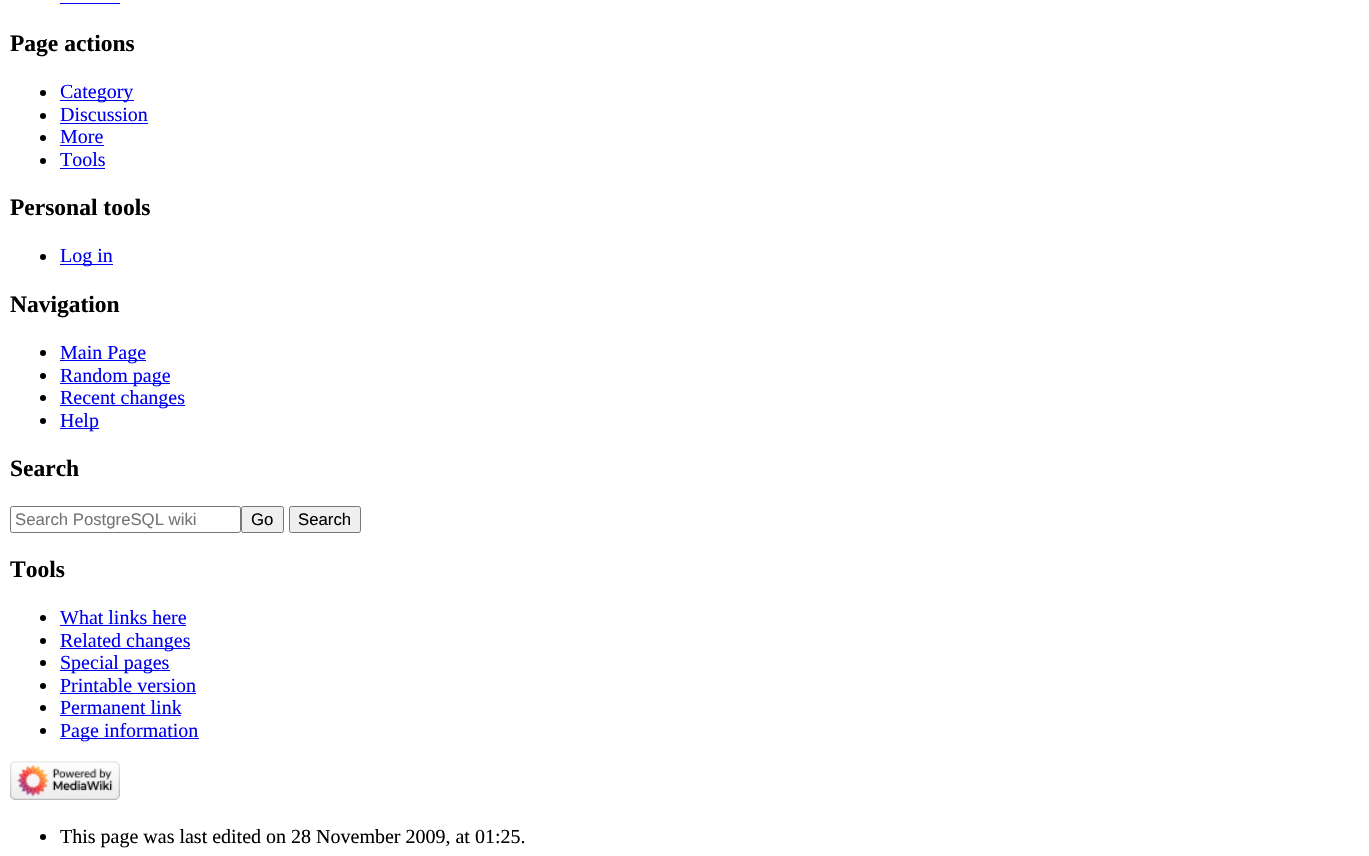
#include "include/core/SkBlurTypes.h"
#include "include/core/SkCanvas.h"
#include "include/core/SkData.h"
#include "include/core/SkFont.h"
#include "include/core/SkFontMgr.h"
#include "include/core/SkImage.h"
#include "include/core/SkMaskFilter.h"
#include "include/core/SkPaint.h"
#include "include/core/SkPathBuilder.h"
#include "include/core/SkTextBlob.h"
#include "include/effects/SkDashPathEffect.h"
#include "include/effects/SkGradientShader.h"
#include "include/utils/SkParsePath.h"

extern sk_sp<SkFontMgr> fontMgr;

void draw(SkCanvas* canvas) {
  SkPaint p;
  p.setAntiAlias(true);
  canvas->clear(SK_ColorWHITE);
  p.setColor(SkColorSetRGB(0, 0, 238));
  canvas->drawRect(SkRect::MakeLTRB(60, 3, 120, 4), p);
  p.setColor(SK_ColorBLACK);
  canvas->drawCircle(43, 93, 3, p);
  p.setColor(SkColorSetRGB(0, 0, 238));
  canvas->drawRect(SkRect::MakeLTRB(60, 100, 134, 101), p);
  p.setColor(SK_ColorBLACK);
  canvas->drawCircle(43, 116, 3, p);
  p.setColor(SkColorSetRGB(0, 0, 238));
  canvas->drawRect(SkRect::MakeLTRB(60, 123, 148, 124), p);
  p.setColor(SK_ColorBLACK);
  canvas->drawCircle(43, 138, 3, p);
  p.setColor(SkColorSetRGB(0, 0, 238));
  canvas->drawRect(SkRect::MakeLTRB(60, 145, 104, 146), p);
  p.setColor(SK_ColorBLACK);
  canvas->drawCircle(43, 161, 3, p);
  p.setColor(SkColorSetRGB(0, 0, 238));
  canvas->drawRect(SkRect::MakeLTRB(60, 168, 105, 169), p);
  p.setColor(SK_ColorBLACK);
  canvas->drawCircle(43, 257, 3, p);
  p.setColor(SkColorSetRGB(0, 0, 238));
  canvas->drawRect(SkRect::MakeLTRB(60, 264, 113, 265), p);
  p.setColor(SK_ColorBLACK);
  canvas->drawCircle(43, 353, 3, p);
  p.setColor(SkColorSetRGB(0, 0, 238));
  canvas->drawRect(SkRect::MakeLTRB(60, 360, 146, 361), p);
  p.setColor(SK_ColorBLACK);
  canvas->drawCircle(43, 376, 3, p);
  p.setColor(SkColorSetRGB(0, 0, 238));
  canvas->drawRect(SkRect::MakeLTRB(60, 383, 170, 384), p);
  p.setColor(SK_ColorBLACK);
  canvas->drawCircle(43, 398, 3, p);
  p.setColor(SkColorSetRGB(0, 0, 238));
  canvas->drawRect(SkRect::MakeLTRB(60, 405, 185, 406), p);
  p.setColor(SK_ColorBLACK);
  canvas->drawCircle(43, 421, 3, p);
  p.setColor(SkColorSetRGB(0, 0, 238));
  canvas->drawRect(SkRect::MakeLTRB(60, 428, 99, 429), p);
  p.setStyle(SkPaint::kStroke_Style);
  p.setStrokeWidth(1);
  p.setColor(SkColorSetRGB(118, 118, 118));
  canvas->drawRoundRect(SkRect::MakeLTRB(10.5f, 506.5f, 240.5f, 532.5f), 2, 2, p);
  p.setStyle(SkPaint::kFill_Style);
  p.setColor(SkColorSetRGB(239, 239, 239));
  canvas->drawRoundRect(SkRect::MakeLTRB(241.5f, 506.5f, 283.5f, 532.5f), 2, 2, p);
  p.setStyle(SkPaint::kStroke_Style);
  p.setColor(SkColorSetRGB(118, 118, 118));
  canvas->drawRoundRect(SkRect::MakeLTRB(241.5f, 506.5f, 283.5f, 532.5f), 2, 2, p);
  p.setStyle(SkPaint::kFill_Style);
  p.setColor(SkColorSetRGB(239, 239, 239));
  canvas->drawRoundRect(SkRect::MakeLTRB(289.5f, 506.5f, 360.5f, 532.5f), 2, 2, p);
  p.setStyle(SkPaint::kStroke_Style);
  p.setColor(SkColorSetRGB(118, 118, 118));
  canvas->drawRoundRect(SkRect::MakeLTRB(289.5f, 506.5f, 360.5f, 532.5f), 2, 2, p);
  p.setStyle(SkPaint::kFill_Style);
  p.setColor(SK_ColorBLACK);
  canvas->drawCircle(43, 618, 3, p);
  p.setColor(SkColorSetRGB(0, 0, 238));
  canvas->drawRect(SkRect::MakeLTRB(60, 625, 186, 626), p);
  p.setColor(SK_ColorBLACK);
  canvas->drawCircle(43, 641, 3, p);
  p.setColor(SkColorSetRGB(0, 0, 238));
  canvas->drawRect(SkRect::MakeLTRB(60, 648, 190, 649), p);
  p.setColor(SK_ColorBLACK);
  canvas->drawCircle(43, 663, 3, p);
  p.setColor(SkColorSetRGB(0, 0, 238));
  canvas->drawRect(SkRect::MakeLTRB(60, 670, 170, 671), p);
  p.setColor(SK_ColorBLACK);
  canvas->drawCircle(43, 686, 3, p);
  p.setColor(SkColorSetRGB(0, 0, 238));
  canvas->drawRect(SkRect::MakeLTRB(60, 693, 196, 694), p);
  p.setColor(SK_ColorBLACK);
  canvas->drawCircle(43, 708, 3, p);
  p.setColor(SkColorSetRGB(0, 0, 238));
  canvas->drawRect(SkRect::MakeLTRB(60, 715, 181, 716), p);
  p.setColor(SK_ColorBLACK);
  canvas->drawCircle(43, 731, 3, p);
  p.setColor(SkColorSetRGB(0, 0, 238));
  canvas->drawRect(SkRect::MakeLTRB(60, 738, 199, 739), p);
  canvas->drawImageRect(SkImages::DeferredFromEncodedData(SkData::MakeFromFileName("images/1.png")), SkRect::MakeLTRB(10, 761, 120, 800), SkSamplingOptions());
  p.setColor(SK_ColorBLACK);
  canvas->drawCircle(43, 837, 3, p);
  SkFont font1(fontMgr->matchFamilyStyle("Liberation Serif", SkFontStyle::Bold()), 23.5f);
  font1.setSubpixel(true);
  canvas->drawString("Page actions", 10, 51, font1, p);
  SkFont font2(fontMgr->matchFamilyStyle("Liberation Serif", SkFontStyle::Normal()), 20);
  font2.setSubpixel(true);
  p.setColor(SkColorSetRGB(0, 0, 238));
  canvas->drawString("Category", 60, 98, font2, p);
  canvas->drawString("Discussion", 60, 121, font2, p);
  canvas->drawString("More", 60, 143, font2, p);
  canvas->drawString("Tools", 60, 166, font2, p);
  p.setColor(SK_ColorBLACK);
  canvas->drawString("Personal tools", 10, 215, font1, p);
  p.setColor(SkColorSetRGB(0, 0, 238));
  canvas->drawString("Log in", 60, 262, font2, p);
  p.setColor(SK_ColorBLACK);
  canvas->drawString("Navigation", 10, 312, font1, p);
  p.setColor(SkColorSetRGB(0, 0, 238));
  canvas->drawString("Main Page", 60, 359, font2, p);
  canvas->drawString("Random page", 60, 382, font2, p);
  canvas->drawString("Recent changes", 60, 404, font2, p);
  canvas->drawString("Help", 60, 427, font2, p);
  p.setColor(SK_ColorBLACK);
  canvas->drawString("Search", 10, 476, font1, p);
  SkFont font3(fontMgr->matchFamilyStyle("Liberation Sans", SkFontStyle::Normal()), 16.75f);
  font3.setSubpixel(true);
  p.setColor(SkColorSetRGB(117, 117, 117));
  canvas->drawString("Search PostgreSQL wiki", 15, 525, font3, p);
  p.setColor(SK_ColorBLACK);
  canvas->drawString("Go", 251, 525, font3, p);
  canvas->drawString("Search", 298, 525, font3, p);
  canvas->drawString("Tools", 10, 577, font1, p);
  p.setColor(SkColorSetRGB(0, 0, 238));
  canvas->drawString("What links here", 60, 624, font2, p);
  canvas->drawString("Related changes", 60, 647, font2, p);
  canvas->drawString("Special pages", 60, 669, font2, p);
  canvas->drawString("Printable version", 60, 692, font2, p);
  canvas->drawString("Permanent link", 60, 714, font2, p);
  canvas->drawString("Page information", 60, 737, font2, p);
  p.setColor(SK_ColorBLACK);
  canvas->drawString("This page was last edited on 28 November 2009, at 01:25.", 60, 843, font2, p);
}
